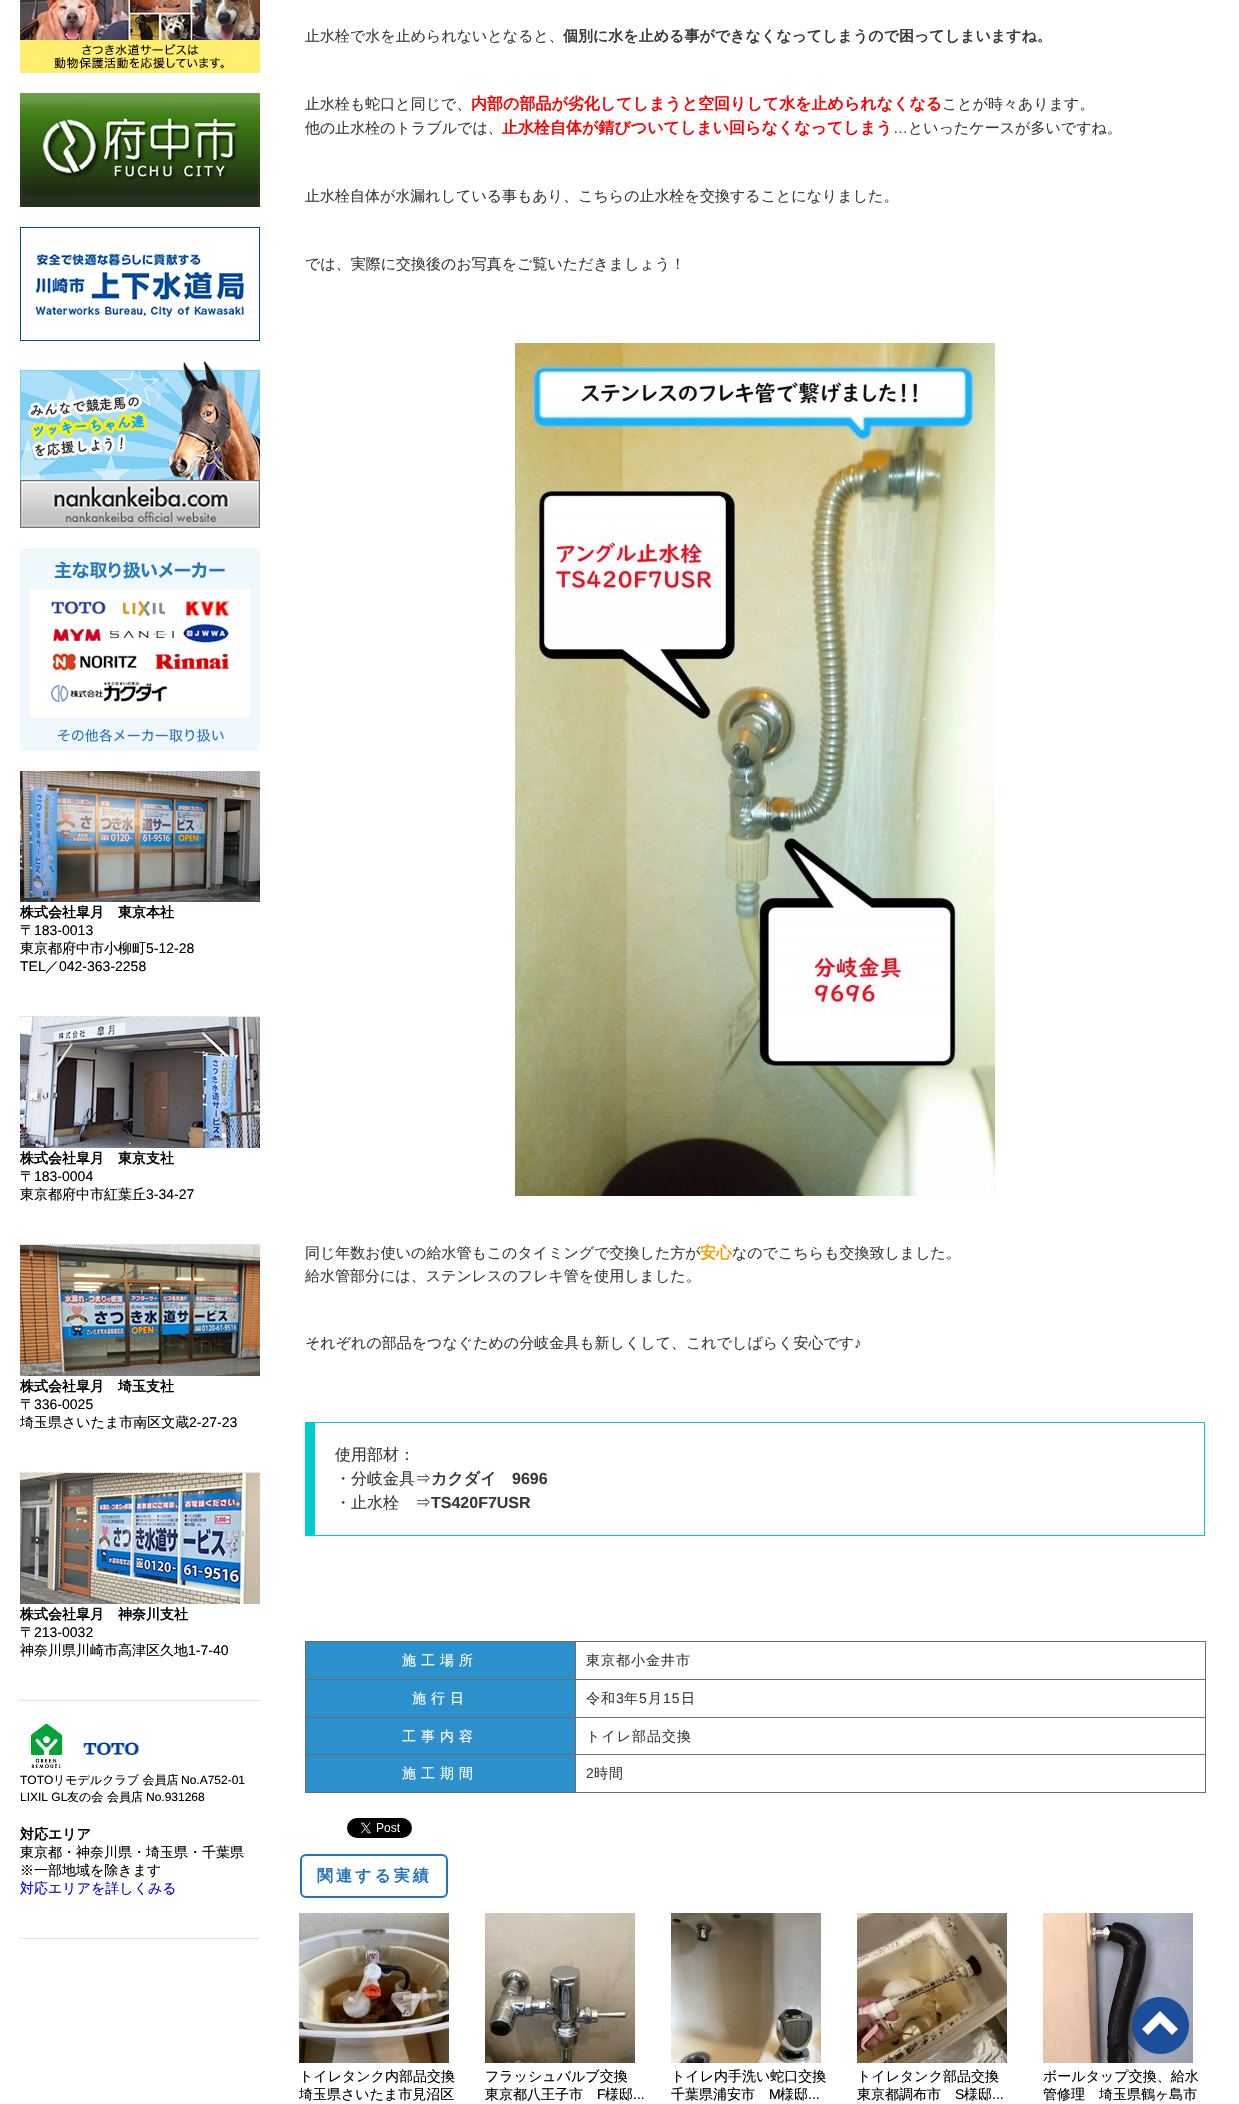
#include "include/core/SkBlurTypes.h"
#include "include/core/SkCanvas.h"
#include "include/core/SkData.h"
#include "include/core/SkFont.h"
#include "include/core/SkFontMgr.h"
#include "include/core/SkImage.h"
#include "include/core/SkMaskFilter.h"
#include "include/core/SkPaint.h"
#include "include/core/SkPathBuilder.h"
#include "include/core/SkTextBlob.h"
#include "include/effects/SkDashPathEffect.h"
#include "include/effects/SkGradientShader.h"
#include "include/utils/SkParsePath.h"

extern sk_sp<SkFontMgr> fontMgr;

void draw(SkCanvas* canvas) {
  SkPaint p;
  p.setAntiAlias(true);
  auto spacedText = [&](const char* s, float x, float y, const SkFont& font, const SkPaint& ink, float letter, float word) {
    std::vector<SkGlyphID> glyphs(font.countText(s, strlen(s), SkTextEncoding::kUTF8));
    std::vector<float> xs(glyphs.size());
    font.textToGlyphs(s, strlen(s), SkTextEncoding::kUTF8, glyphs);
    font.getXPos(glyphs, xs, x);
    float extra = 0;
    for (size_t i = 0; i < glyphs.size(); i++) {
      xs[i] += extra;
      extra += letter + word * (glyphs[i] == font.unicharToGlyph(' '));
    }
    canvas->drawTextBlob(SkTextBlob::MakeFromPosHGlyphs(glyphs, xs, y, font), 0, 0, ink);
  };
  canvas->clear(SK_ColorWHITE);
  canvas->drawImageRect(SkImages::DeferredFromEncodedData(SkData::MakeFromFileName("images/1.png")), SkRect::MakeLTRB(20, 0, 260, 73), SkSamplingOptions());
  canvas->drawImageRect(SkImages::DeferredFromEncodedData(SkData::MakeFromFileName("images/2.png")), SkRect::MakeLTRB(20, 93, 260, 207), SkSamplingOptions());
  canvas->drawImageRect(SkImages::DeferredFromEncodedData(SkData::MakeFromFileName("images/3.png")), SkRect::MakeLTRB(20, 227, 260, 341), SkSamplingOptions());
  canvas->drawImageRect(SkImages::DeferredFromEncodedData(SkData::MakeFromFileName("images/4.png")), SkRect::MakeLTRB(20, 361, 260, 528), SkSamplingOptions());
  canvas->drawImageRect(SkImages::DeferredFromEncodedData(SkData::MakeFromFileName("images/5.png")), SkRect::MakeLTRB(20, 548, 260, 751), SkSamplingOptions());
  canvas->drawImageRect(SkImages::DeferredFromEncodedData(SkData::MakeFromFileName("images/6.png")), SkRect::MakeLTRB(20, 771, 260, 902), SkSamplingOptions());
  p.setStyle(SkPaint::kStroke_Style);
  p.setStrokeWidth(1);
  p.setColor(SkColorSetRGB(204, 204, 204));
  p.setPathEffect(SkDashPathEffect::Make({{1, 1}}, 0));
  canvas->drawPath(SkPathBuilder().moveTo(20, 1016.5f).lineTo(260, 1016.5f).detach(), p);
  p.setPathEffect(nullptr);
  canvas->drawImageRect(SkImages::DeferredFromEncodedData(SkData::MakeFromFileName("images/7.png")), SkRect::MakeLTRB(20, 1017, 260, 1148), SkSamplingOptions());
  p.setPathEffect(SkDashPathEffect::Make({{1, 1}}, 0));
  canvas->drawPath(SkPathBuilder().moveTo(20, 1244.5f).lineTo(260, 1244.5f).detach(), p);
  p.setPathEffect(nullptr);
  canvas->drawImageRect(SkImages::DeferredFromEncodedData(SkData::MakeFromFileName("images/8.png")), SkRect::MakeLTRB(20, 1245, 260, 1376), SkSamplingOptions());
  p.setPathEffect(SkDashPathEffect::Make({{1, 1}}, 0));
  canvas->drawPath(SkPathBuilder().moveTo(20, 1472.5f).lineTo(260, 1472.5f).detach(), p);
  p.setPathEffect(nullptr);
  canvas->drawImageRect(SkImages::DeferredFromEncodedData(SkData::MakeFromFileName("images/9.png")), SkRect::MakeLTRB(20, 1473, 260, 1604), SkSamplingOptions());
  p.setPathEffect(SkDashPathEffect::Make({{1, 1}}, 0));
  canvas->drawPath(SkPathBuilder().moveTo(20, 1700.5f).lineTo(260, 1700.5f).detach(), p);
  p.setPathEffect(nullptr);
  canvas->drawImageRect(SkImages::DeferredFromEncodedData(SkData::MakeFromFileName("images/10.png")), SkRect::MakeLTRB(28, 1721, 140, 1769), SkSamplingOptions());
  p.setPathEffect(SkDashPathEffect::Make({{1, 1}}, 0));
  canvas->drawPath(SkPathBuilder().moveTo(20, 1938.5f).lineTo(260, 1938.5f).detach(), p);
  p.setPathEffect(nullptr);
  canvas->drawImageRect(SkImages::DeferredFromEncodedData(SkData::MakeFromFileName("images/11.png")), SkRect::MakeLTRB(515, 343, 995, 1196), SkSamplingOptions());
  p.setStyle(SkPaint::kFill_Style);
  p.setColor(SkColorSetRGB(0, 206, 209));
  canvas->drawRect(SkRect::MakeLTRB(315, 1422, 1205, 1423), p);
  canvas->drawRect(SkRect::MakeLTRB(1204, 1422, 1205, 1536), p);
  canvas->drawRect(SkRect::MakeLTRB(315, 1535, 1205, 1536), p);
  canvas->drawRect(SkRect::MakeLTRB(305, 1422, 315, 1536), p);
  p.setColor(SkColorSetRGB(44, 144, 205));
  canvas->drawRect(SkRect::MakeLTRB(306, 1642, 575, 1679), p);
  p.setColor(SkColorSetRGB(107, 107, 107));
  canvas->drawRect(SkRect::MakeLTRB(575, 1641, 1206, 1642), p);
  canvas->drawRect(SkRect::MakeLTRB(575, 1679, 1206, 1680), p);
  canvas->drawRect(SkRect::MakeLTRB(575, 1717, 1206, 1718), p);
  canvas->drawRect(SkRect::MakeLTRB(575, 1754, 1206, 1755), p);
  canvas->drawRect(SkRect::MakeLTRB(1205, 1754, 1206, 1793), p);
  canvas->drawRect(SkRect::MakeLTRB(575, 1792, 1206, 1793), p);
  canvas->drawRect(SkRect::MakeLTRB(575, 1754, 576, 1793), p);
  canvas->drawRect(SkRect::MakeLTRB(305, 1754, 576, 1755), p);
  canvas->drawRect(SkRect::MakeLTRB(575, 1717, 576, 1755), p);
  canvas->drawRect(SkRect::MakeLTRB(305, 1717, 576, 1718), p);
  canvas->drawRect(SkRect::MakeLTRB(575, 1679, 576, 1718), p);
  canvas->drawRect(SkRect::MakeLTRB(305, 1679, 576, 1680), p);
  canvas->drawRect(SkRect::MakeLTRB(575, 1641, 576, 1680), p);
  canvas->drawRect(SkRect::MakeLTRB(305, 1641, 576, 1642), p);
  canvas->drawRect(SkRect::MakeLTRB(305, 1792, 576, 1793), p);
  canvas->drawRect(SkRect::MakeLTRB(305, 1754, 306, 1793), p);
  canvas->drawRect(SkRect::MakeLTRB(305, 1717, 306, 1755), p);
  canvas->drawRect(SkRect::MakeLTRB(305, 1679, 306, 1718), p);
  canvas->drawRect(SkRect::MakeLTRB(305, 1641, 306, 1680), p);
  canvas->drawRect(SkRect::MakeLTRB(1205, 1717, 1206, 1755), p);
  canvas->drawRect(SkRect::MakeLTRB(1205, 1679, 1206, 1718), p);
  canvas->drawRect(SkRect::MakeLTRB(1205, 1641, 1206, 1680), p);
  p.setColor(SkColorSetRGB(44, 144, 205));
  canvas->drawRect(SkRect::MakeLTRB(306, 1680, 575, 1717), p);
  canvas->drawRect(SkRect::MakeLTRB(306, 1718, 575, 1754), p);
  canvas->drawRect(SkRect::MakeLTRB(306, 1755, 575, 1792), p);
  canvas->drawImageRect(SkImages::DeferredFromEncodedData(SkData::MakeFromFileName("images/12.png")), SkRect::MakeLTRB(347, 1818, 412, 1838), SkSamplingOptions());
  p.setStyle(SkPaint::kStroke_Style);
  p.setStrokeWidth(2);
  p.setColor(SkColorSetRGB(34, 114, 190));
  canvas->drawRoundRect(SkRect::MakeLTRB(301, 1855, 447, 1897), 5, 5, p);
  canvas->drawImageRect(SkImages::DeferredFromEncodedData(SkData::MakeFromFileName("images/18.png")), SkRect::MakeLTRB(1043, 1913, 1193, 2063), SkSamplingOptions());
  canvas->drawImageRect(SkImages::DeferredFromEncodedData(SkData::MakeFromFileName("images/13.png")), SkRect::MakeLTRB(1132, 1997, 1189, 2054), SkSamplingOptions());
  canvas->drawImageRect(SkImages::DeferredFromEncodedData(SkData::MakeFromFileName("images/14.png")), SkRect::MakeLTRB(299, 1913, 449, 2063), SkSamplingOptions());
  canvas->drawImageRect(SkImages::DeferredFromEncodedData(SkData::MakeFromFileName("images/15.png")), SkRect::MakeLTRB(485, 1913, 635, 2063), SkSamplingOptions());
  canvas->drawImageRect(SkImages::DeferredFromEncodedData(SkData::MakeFromFileName("images/16.png")), SkRect::MakeLTRB(671, 1913, 821, 2063), SkSamplingOptions());
  canvas->drawImageRect(SkImages::DeferredFromEncodedData(SkData::MakeFromFileName("images/17.png")), SkRect::MakeLTRB(857, 1913, 1007, 2063), SkSamplingOptions());
  SkFont font1(fontMgr->matchFamilyStyle("WenQuanYi Zen Hei", SkFontStyle::Bold()), 14);
  font1.setSubpixel(true);
  p.setStyle(SkPaint::kFill_Style);
  p.setColor(SK_ColorBLACK);
  canvas->drawString("株式会社皐月　東京本社", 20, 917, font1, p);
  SkFont font2(fontMgr->matchFamilyStyle("WenQuanYi Zen Hei", SkFontStyle(500, SkFontStyle::kNormal_Width, SkFontStyle::kUpright_Slant)), 14);
  font2.setSubpixel(true);
  canvas->drawString("〒", 20, 935, font2, p);
  SkFont font3(fontMgr->matchFamilyStyle("Liberation Sans", SkFontStyle::Normal()), 14);
  font3.setSubpixel(true);
  canvas->drawString("183-0013", 34, 935, font3, p);
  canvas->drawString("東京都府中市小柳町", 20, 953, font2, p);
  canvas->drawString("5-12-28", 146, 953, font3, p);
  canvas->drawString("TEL", 20, 971, font3, p);
  canvas->drawString("／", 45, 971, font2, p);
  canvas->drawString("042-363-2258", 59, 971, font3, p);
  canvas->drawString("株式会社皐月　東京支社", 20, 1163, font1, p);
  canvas->drawString("〒", 20, 1181, font2, p);
  canvas->drawString("183-0004", 34, 1181, font3, p);
  canvas->drawString("東京都府中市紅葉丘", 20, 1199, font2, p);
  canvas->drawString("3-34-27", 146, 1199, font3, p);
  canvas->drawString("株式会社皐月　埼玉支社", 20, 1391, font1, p);
  canvas->drawString("〒", 20, 1409, font2, p);
  canvas->drawString("336-0025", 34, 1409, font3, p);
  canvas->drawString("埼玉県さいたま市南区文蔵", 20, 1427, font2, p);
  canvas->drawString("2-27-23", 189, 1427, font3, p);
  canvas->drawString("株式会社皐月　神奈川支社", 20, 1619, font1, p);
  canvas->drawString("〒", 20, 1637, font2, p);
  canvas->drawString("213-0032", 34, 1637, font3, p);
  canvas->drawString("神奈川県川崎市高津区久地", 20, 1655, font2, p);
  canvas->drawString("1-7-40", 188, 1655, font3, p);
  SkFont font4(fontMgr->matchFamilyStyle("Liberation Sans", SkFontStyle::Normal()), 12);
  font4.setSubpixel(true);
  canvas->drawString("TOTO", 20, 1784, font4, p);
  SkFont font5(fontMgr->matchFamilyStyle("WenQuanYi Zen Hei", SkFontStyle(500, SkFontStyle::kNormal_Width, SkFontStyle::kUpright_Slant)), 12);
  font5.setSubpixel(true);
  canvas->drawString("リモデルクラブ 会員店", 53, 1784, font5, p);
  canvas->drawString("No.A752-01", 181, 1784, font4, p);
  canvas->drawString("LIXIL GL", 20, 1801, font4, p);
  canvas->drawString("友の会 会員店", 67, 1801, font5, p);
  canvas->drawString("No.931268", 146, 1801, font4, p);
  canvas->drawString("対応エリア", 20, 1839, font1, p);
  canvas->drawString("東京都・神奈川県・埼玉県・千葉県", 20, 1857, font2, p);
  canvas->drawString("※一部地域を除きます", 20, 1875, font2, p);
  p.setColor(SkColorSetRGB(0, 0, 238));
  canvas->drawString("対応エリアを詳しくみる", 20, 1893, font2, p);
  SkFont font6(fontMgr->matchFamilyStyle("WenQuanYi Zen Hei", SkFontStyle(500, SkFontStyle::kNormal_Width, SkFontStyle::kUpright_Slant)), 15);
  font6.setSubpixel(true);
  p.setColor(SkColorSetRGB(58, 58, 58));
  canvas->drawString("止水栓で水を止められないとなると、", 305, 41, font6, p);
  SkFont font7(fontMgr->matchFamilyStyle("WenQuanYi Zen Hei", SkFontStyle::Bold()), 15);
  font7.setSubpixel(true);
  canvas->drawString("個別に水を止める事ができなくなってしまうので困ってしまいますね。", 563, 41, font7, p);
  canvas->drawString("止水栓も蛇口と同じで、", 305, 109, font6, p);
  SkFont font8(fontMgr->matchFamilyStyle("WenQuanYi Zen Hei", SkFontStyle::Bold()), 16);
  font8.setSubpixel(true);
  p.setColor(SkColorSetRGB(255, 0, 0));
  canvas->drawString("内部の部品が劣化してしまうと空回りして水を止められなくなる", 471, 109, font8, p);
  p.setColor(SkColorSetRGB(58, 58, 58));
  canvas->drawString("ことが時々あります。", 942, 109, font6, p);
  canvas->drawString("他の止水栓のトラブルでは、", 305, 133, font6, p);
  p.setColor(SkColorSetRGB(255, 0, 0));
  canvas->drawString("止水栓自体が錆びついてしまい回らなくなってしまう", 502, 133, font8, p);
  SkFont font9(fontMgr->matchFamilyStyle("Liberation Sans", SkFontStyle::Normal()), 15);
  font9.setSubpixel(true);
  p.setColor(SkColorSetRGB(58, 58, 58));
  canvas->drawString("…", 893, 133, font9, p);
  canvas->drawString("といったケースが多いですね。", 908, 133, font6, p);
  canvas->drawString("止水栓自体が水漏れしている事もあり、こちらの止水栓を交換することになりました。", 305, 201, font6, p);
  canvas->drawString("では、実際に交換後のお写真をご覧いただきましょう！", 305, 269, font6, p);
  canvas->drawString("同じ年数お使いの給水管もこのタイミングで交換した方が", 305, 1258, font6, p);
  p.setColor(SkColorSetRGB(255, 153, 0));
  canvas->drawString("安心", 700, 1258, font8, p);
  p.setColor(SkColorSetRGB(58, 58, 58));
  canvas->drawString("なのでこちらも交換致しました。", 732, 1258, font6, p);
  canvas->drawString("給水管部分には、ステンレスのフレキ管を使用しました。", 305, 1281, font6, p);
  canvas->drawString("それぞれの部品をつなぐための分岐金具も新しくして、これでしばらく安心です", 305, 1348, font6, p);
  canvas->drawString("♪", 854, 1348, font9, p);
  SkFont font10(fontMgr->matchFamilyStyle("WenQuanYi Zen Hei", SkFontStyle(500, SkFontStyle::kNormal_Width, SkFontStyle::kUpright_Slant)), 16);
  font10.setSubpixel(true);
  canvas->drawString("使用部材：", 335, 1460, font10, p);
  canvas->drawString("・分岐金具⇒", 335, 1484, font10, p);
  canvas->drawString("カクダイ", 431, 1484, font8, p);
  SkFont font11(fontMgr->matchFamilyStyle("Liberation Sans", SkFontStyle::Bold()), 16);
  font11.setSubpixel(true);
  canvas->drawString("9696", 512, 1484, font11, p);
  canvas->drawString("・止水栓　⇒", 335, 1508, font10, p);
  canvas->drawString("TS420F7USR", 431, 1508, font11, p);
  p.setColor(SK_ColorWHITE);
  spacedText("施工場所", 402, 1665, font2, p, 5, 0);
  p.setColor(SkColorSetRGB(58, 58, 58));
  spacedText("東京都小金井市", 586, 1665, font2, p, 1, 0);
  p.setColor(SK_ColorWHITE);
  spacedText("施行日", 412, 1703, font2, p, 5, 0);
  p.setColor(SkColorSetRGB(58, 58, 58));
  spacedText("令和", 586, 1703, font2, p, 1, 0);
  spacedText("3", 616, 1703, font3, p, 1, 0);
  spacedText("年", 624, 1703, font2, p, 1, 0);
  spacedText("5", 639, 1703, font3, p, 1, 0);
  spacedText("月", 648, 1703, font2, p, 1, 0);
  spacedText("15", 663, 1703, font3, p, 1, 0);
  spacedText("日", 681, 1703, font2, p, 1, 0);
  p.setColor(SK_ColorWHITE);
  spacedText("工事内容", 402, 1741, font2, p, 5, 0);
  p.setColor(SkColorSetRGB(58, 58, 58));
  spacedText("トイレ部品交換", 586, 1741, font2, p, 1, 0);
  p.setColor(SK_ColorWHITE);
  spacedText("施工期間", 402, 1778, font2, p, 5, 0);
  p.setColor(SkColorSetRGB(58, 58, 58));
  spacedText("2", 586, 1778, font3, p, 1, 0);
  spacedText("時間", 594, 1778, font2, p, 1, 0);
  p.setColor(SkColorSetRGB(34, 114, 190));
  spacedText("関連する実績", 317, 1881, font8, p, 3, 0);
  p.setColor(SK_ColorBLACK);
  canvas->drawString("トイレタンク内部品交換", 299, 2081, font2, p);
  canvas->drawString("埼玉県さいたま市見沼区", 299, 2099, font2, p);
  canvas->drawString("フラッシュバルブ交換", 485, 2081, font2, p);
  canvas->drawString("東京都八王子市", 485, 2099, font2, p);
  canvas->drawString("F", 597, 2099, font3, p);
  canvas->drawString("様邸", 605, 2099, font2, p);
  canvas->drawString("...", 633, 2099, font3, p);
  canvas->drawString("トイレ内手洗い蛇口交換", 671, 2081, font2, p);
  canvas->drawString("千葉県浦安市", 671, 2099, font2, p);
  canvas->drawString("M", 769, 2099, font3, p);
  canvas->drawString("様邸", 780, 2099, font2, p);
  canvas->drawString("...", 808, 2099, font3, p);
  canvas->drawString("トイレタンク部品交換", 857, 2081, font2, p);
  canvas->drawString("東京都調布市", 857, 2099, font2, p);
  canvas->drawString("S", 955, 2099, font3, p);
  canvas->drawString("様邸", 964, 2099, font2, p);
  canvas->drawString("...", 992, 2099, font3, p);
  canvas->drawString("ボールタップ交換、給水", 1043, 2081, font2, p);
  canvas->drawString("管修理　埼玉県鶴ヶ島市", 1043, 2099, font2, p);
}
